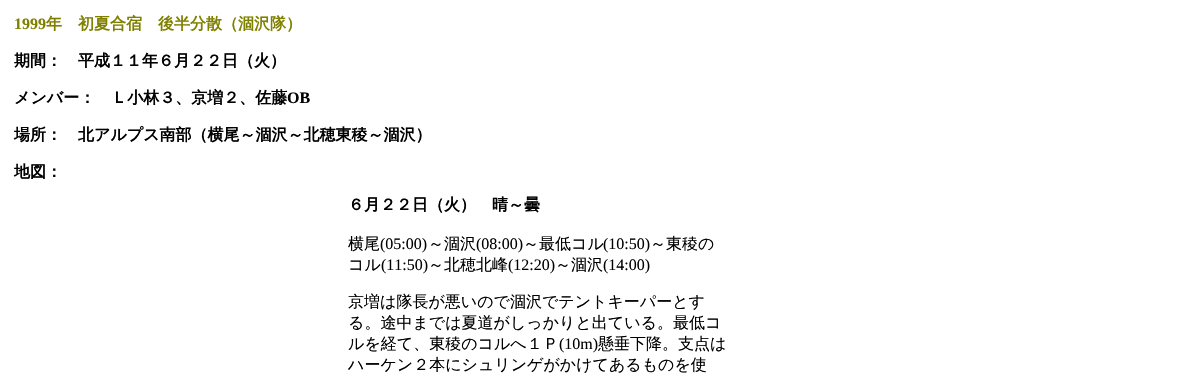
#include "include/core/SkBlurTypes.h"
#include "include/core/SkCanvas.h"
#include "include/core/SkData.h"
#include "include/core/SkFont.h"
#include "include/core/SkFontMgr.h"
#include "include/core/SkImage.h"
#include "include/core/SkMaskFilter.h"
#include "include/core/SkPaint.h"
#include "include/core/SkPathBuilder.h"
#include "include/core/SkTextBlob.h"
#include "include/effects/SkDashPathEffect.h"
#include "include/effects/SkGradientShader.h"
#include "include/utils/SkParsePath.h"

extern sk_sp<SkFontMgr> fontMgr;

void draw(SkCanvas* canvas) {
  SkPaint p;
  p.setAntiAlias(true);
  canvas->clear(SK_ColorWHITE);
  SkFont font1(fontMgr->matchFamilyStyle("Liberation Serif", SkFontStyle::Bold()), 16);
  font1.setSubpixel(true);
  p.setColor(SkColorSetRGB(128, 128, 0));
  canvas->drawString("1999", 14, 29, font1, p);
  SkFont font2(fontMgr->matchFamilyStyle("WenQuanYi Zen Hei", SkFontStyle::Bold()), 16);
  font2.setSubpixel(true);
  canvas->drawString("年　初夏合宿　後半分散（涸沢隊）", 46, 29, font2, p);
  p.setColor(SK_ColorBLACK);
  canvas->drawString("期間：　平成１１年６月２２日（火）", 14, 66, font2, p);
  canvas->drawString("メンバー：　Ｌ小林３、京増２、佐藤", 14, 103, font2, p);
  canvas->drawString("OB", 287, 103, font1, p);
  canvas->drawString("場所：　北アルプス南部（横尾～涸沢～北穂東稜～涸沢）", 14, 140, font2, p);
  canvas->drawString("地図：", 14, 177, font2, p);
  canvas->drawString("６月２２日（火）　晴～曇", 348, 210, font2, p);
  SkFont font3(fontMgr->matchFamilyStyle("WenQuanYi Zen Hei", SkFontStyle(500, SkFontStyle::kNormal_Width, SkFontStyle::kUpright_Slant)), 16);
  font3.setSubpixel(true);
  canvas->drawString("横尾", 348, 249, font3, p);
  SkFont font4(fontMgr->matchFamilyStyle("Liberation Serif", SkFontStyle::Normal()), 16);
  font4.setSubpixel(true);
  canvas->drawString("(05:00)", 380, 249, font4, p);
  canvas->drawString("～涸沢", 428, 249, font3, p);
  canvas->drawString("(08:00)", 476, 249, font4, p);
  canvas->drawString("～最低コル", 523, 249, font3, p);
  canvas->drawString("(10:50)", 603, 249, font4, p);
  canvas->drawString("～東稜の", 650, 249, font3, p);
  canvas->drawString("コル", 348, 270, font3, p);
  canvas->drawString("(11:50)", 381, 270, font4, p);
  canvas->drawString("～北穂北峰", 428, 270, font3, p);
  canvas->drawString("(12:20)", 508, 270, font4, p);
  canvas->drawString("～涸沢", 555, 270, font3, p);
  canvas->drawString("(14:00)", 603, 270, font4, p);
  canvas->drawString("京増は隊長が悪いので涸沢でテントキーパーとす", 348, 307, font3, p);
  canvas->drawString("る。途中までは夏道がしっかりと出ている。最低コ", 348, 328, font3, p);
  canvas->drawString("ルを経て、東稜のコルへ１Ｐ", 348, 349, font3, p);
  canvas->drawString("(10m)", 559, 349, font4, p);
  canvas->drawString("懸垂下降。支点は", 598, 349, font3, p);
  canvas->drawString("ハーケン２本にシュリンゲがかけてあるものを使", 348, 370, font3, p);
}
